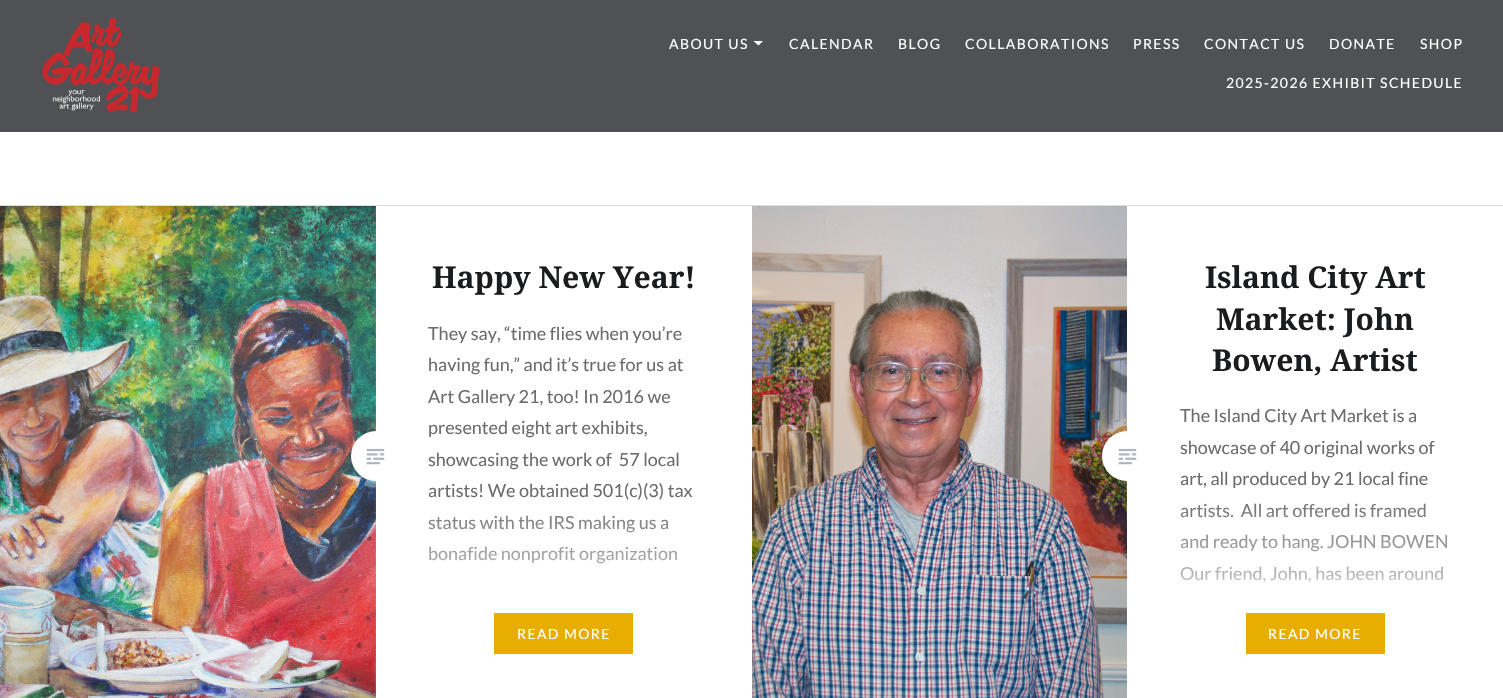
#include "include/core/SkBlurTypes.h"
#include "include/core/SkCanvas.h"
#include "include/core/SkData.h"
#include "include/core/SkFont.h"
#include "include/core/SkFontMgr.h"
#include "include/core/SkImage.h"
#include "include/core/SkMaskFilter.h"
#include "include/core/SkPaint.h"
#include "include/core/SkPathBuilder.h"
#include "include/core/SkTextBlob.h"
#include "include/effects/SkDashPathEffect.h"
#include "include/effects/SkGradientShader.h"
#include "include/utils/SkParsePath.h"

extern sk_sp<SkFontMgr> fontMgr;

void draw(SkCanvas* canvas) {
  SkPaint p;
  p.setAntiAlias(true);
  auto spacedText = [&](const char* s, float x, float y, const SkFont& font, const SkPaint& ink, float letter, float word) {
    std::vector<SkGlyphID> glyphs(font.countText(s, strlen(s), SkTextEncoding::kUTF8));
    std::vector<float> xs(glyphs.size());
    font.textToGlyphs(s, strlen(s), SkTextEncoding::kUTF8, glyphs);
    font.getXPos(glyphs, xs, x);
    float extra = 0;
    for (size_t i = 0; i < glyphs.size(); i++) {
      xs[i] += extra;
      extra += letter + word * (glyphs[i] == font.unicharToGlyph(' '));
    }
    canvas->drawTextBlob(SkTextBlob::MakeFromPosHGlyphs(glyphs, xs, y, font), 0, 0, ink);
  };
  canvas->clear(SK_ColorWHITE);
  p.setColor(SkColorSetARGB(204, 36, 38, 41));
  canvas->drawRect(SkRect::MakeLTRB(0, 0, 1503, 132), p);
  canvas->drawImageRect(SkImages::DeferredFromEncodedData(SkData::MakeFromFileName("images/1.png")), SkRect::MakeLTRB(42, 17, 160, 113), SkSamplingOptions());
  p.setColor(SK_ColorWHITE);
  canvas->drawPath(SkPathBuilder().moveTo(753.5f, 41).lineTo(763, 41).lineTo(758.5f, 45.5f).close().detach(), p);
  p.setColor(SkColorSetRGB(217, 223, 229));
  canvas->drawRect(SkRect::MakeLTRB(0, 205, 1503, 206), p);
  canvas->drawImageRect(SkImages::DeferredFromEncodedData(SkData::MakeFromFileName("images/2.png")), SkRect::MakeLTRB(0, 206, 376, 698), SkSamplingOptions());
  p.setColor(SK_ColorWHITE);
  canvas->drawCircle(376, 456, 25, p);
  p.setColor(SkColorSetRGB(231, 174, 1));
  canvas->drawRect(SkRect::MakeLTRB(494, 613, 633, 654), p);
  canvas->drawImageRect(SkImages::DeferredFromEncodedData(SkData::MakeFromFileName("images/3.png")), SkRect::MakeLTRB(366, 448, 385, 465), SkSamplingOptions());
  canvas->drawImageRect(SkImages::DeferredFromEncodedData(SkData::MakeFromFileName("images/4.png")), SkRect::MakeLTRB(752, 206, 1127, 698), SkSamplingOptions());
  p.setColor(SK_ColorWHITE);
  canvas->drawCircle(1127, 456, 25, p);
  p.setColor(SkColorSetRGB(231, 174, 1));
  canvas->drawRect(SkRect::MakeLTRB(1246, 613, 1385, 654), p);
  canvas->drawImageRect(SkImages::DeferredFromEncodedData(SkData::MakeFromFileName("images/3.png")), SkRect::MakeLTRB(1118, 448, 1137, 465), SkSamplingOptions());
  SkFont font1(fontMgr->matchFamilyStyle("Lato", SkFontStyle::Normal()), 14);
  font1.setSubpixel(true);
  p.setColor(SK_ColorWHITE);
  spacedText("ABOUT US", 669, 49, font1, p, 1.4f, 0);
  spacedText("CALENDAR", 789, 49, font1, p, 1.4f, 0);
  spacedText("BLOG", 898, 49, font1, p, 1.4f, 0);
  spacedText("COLLABORATIONS", 965, 49, font1, p, 1.4f, 0);
  spacedText("PRESS", 1133, 49, font1, p, 1.4f, 0);
  spacedText("CONTACT US", 1204, 49, font1, p, 1.4f, 0);
  spacedText("DONATE", 1329, 49, font1, p, 1.4f, 0);
  spacedText("SHOP", 1420, 49, font1, p, 1.4f, 0);
  spacedText("2025-2026 EXHIBIT SCHEDULE", 1226, 88, font1, p, 1.4f, 0);
  SkFont font2(fontMgr->matchFamilyStyle("Noto Serif", SkFontStyle::Bold()), 30);
  font2.setSubpixel(true);
  p.setColor(SkColorSetRGB(26, 28, 30));
  canvas->drawString("Happy New Year!", 432, 288, font2, p);
  SkFont font3(fontMgr->matchFamilyStyle("Lato", SkFontStyle::Normal()), 18);
  font3.setSubpixel(true);
  p.setColor(SkColorSetRGB(106, 108, 110));
  canvas->drawString("They say, “time flies when you’re", 428, 340, font3, p);
  canvas->drawString("having fun,” and it’s true for us at", 428, 371, font3, p);
  canvas->drawString("Art Gallery 21, too! In 2016 we", 428, 403, font3, p);
  canvas->drawString("presented eight art exhibits,", 428, 434, font3, p);
  canvas->drawString("showcasing the work of  57 local", 428, 466, font3, p);
  canvas->drawString("artists! We obtained 501(c)(3) tax", 428, 497, font3, p);
  canvas->drawString("status with the IRS making us a", 428, 529, font3, p);
  canvas->drawString("bonafide nonprofit organization", 428, 560, font3, p);
  p.setColor(SK_ColorWHITE);
  spacedText("READ MORE", 517, 639, font1, p, 1.4f, 0);
  {
    const SkColor colors[] = {SkColorSetARGB(0, 255, 255, 255), SK_ColorWHITE};
    const float stops[] = {0, 1};
    const SkPoint ends[] = {{564, 494}, {564, 654}};
    p.setShader(SkGradientShader::MakeLinear(ends, colors, stops, 2, SkTileMode::kClamp));
    p.setAlpha(255);
  }
  canvas->drawRect(SkRect::MakeLTRB(429, 497, 678, 564), p);
  p.setShader(nullptr);
  p.setColor(SkColorSetRGB(26, 28, 30));
  canvas->drawString("Island City Art", 1205, 288, font2, p);
  canvas->drawString("Market: John", 1216, 330, font2, p);
  canvas->drawString("Bowen, Artist", 1212, 371, font2, p);
  p.setColor(SkColorSetRGB(106, 108, 110));
  canvas->drawString("The Island City Art Market is a", 1180, 422, font3, p);
  canvas->drawString("showcase of 40 original works of", 1180, 454, font3, p);
  canvas->drawString("art, all produced by 21 local fine", 1180, 485, font3, p);
  canvas->drawString("artists.  All art offered is framed", 1180, 517, font3, p);
  canvas->drawString("and ready to hang. JOHN BOWEN", 1180, 548, font3, p);
  canvas->drawString("Our friend, John, has been around", 1180, 580, font3, p);
  p.setColor(SK_ColorWHITE);
  spacedText("READ MORE", 1268, 639, font1, p, 1.4f, 0);
  {
    const SkColor colors[] = {SkColorSetARGB(0, 255, 255, 255), SK_ColorWHITE};
    const float stops[] = {0, 1};
    const SkPoint ends[] = {{1315, 494}, {1315, 654}};
    p.setShader(SkGradientShader::MakeLinear(ends, colors, stops, 2, SkTileMode::kClamp));
    p.setAlpha(255);
  }
  canvas->drawRect(SkRect::MakeLTRB(1180, 504, 1447, 583), p);
  {
    const SkColor colors[] = {SkColorSetARGB(0, 255, 255, 255), SK_ColorWHITE};
    const float stops[] = {0, 1};
    const SkPoint ends[] = {{1315, 576}, {1315, 599}};
    p.setShader(SkGradientShader::MakeLinear(ends, colors, stops, 2, SkTileMode::kClamp));
    p.setAlpha(255);
  }
  canvas->drawRect(SkRect::MakeLTRB(1182, 577, 1443, 583), p);
}
